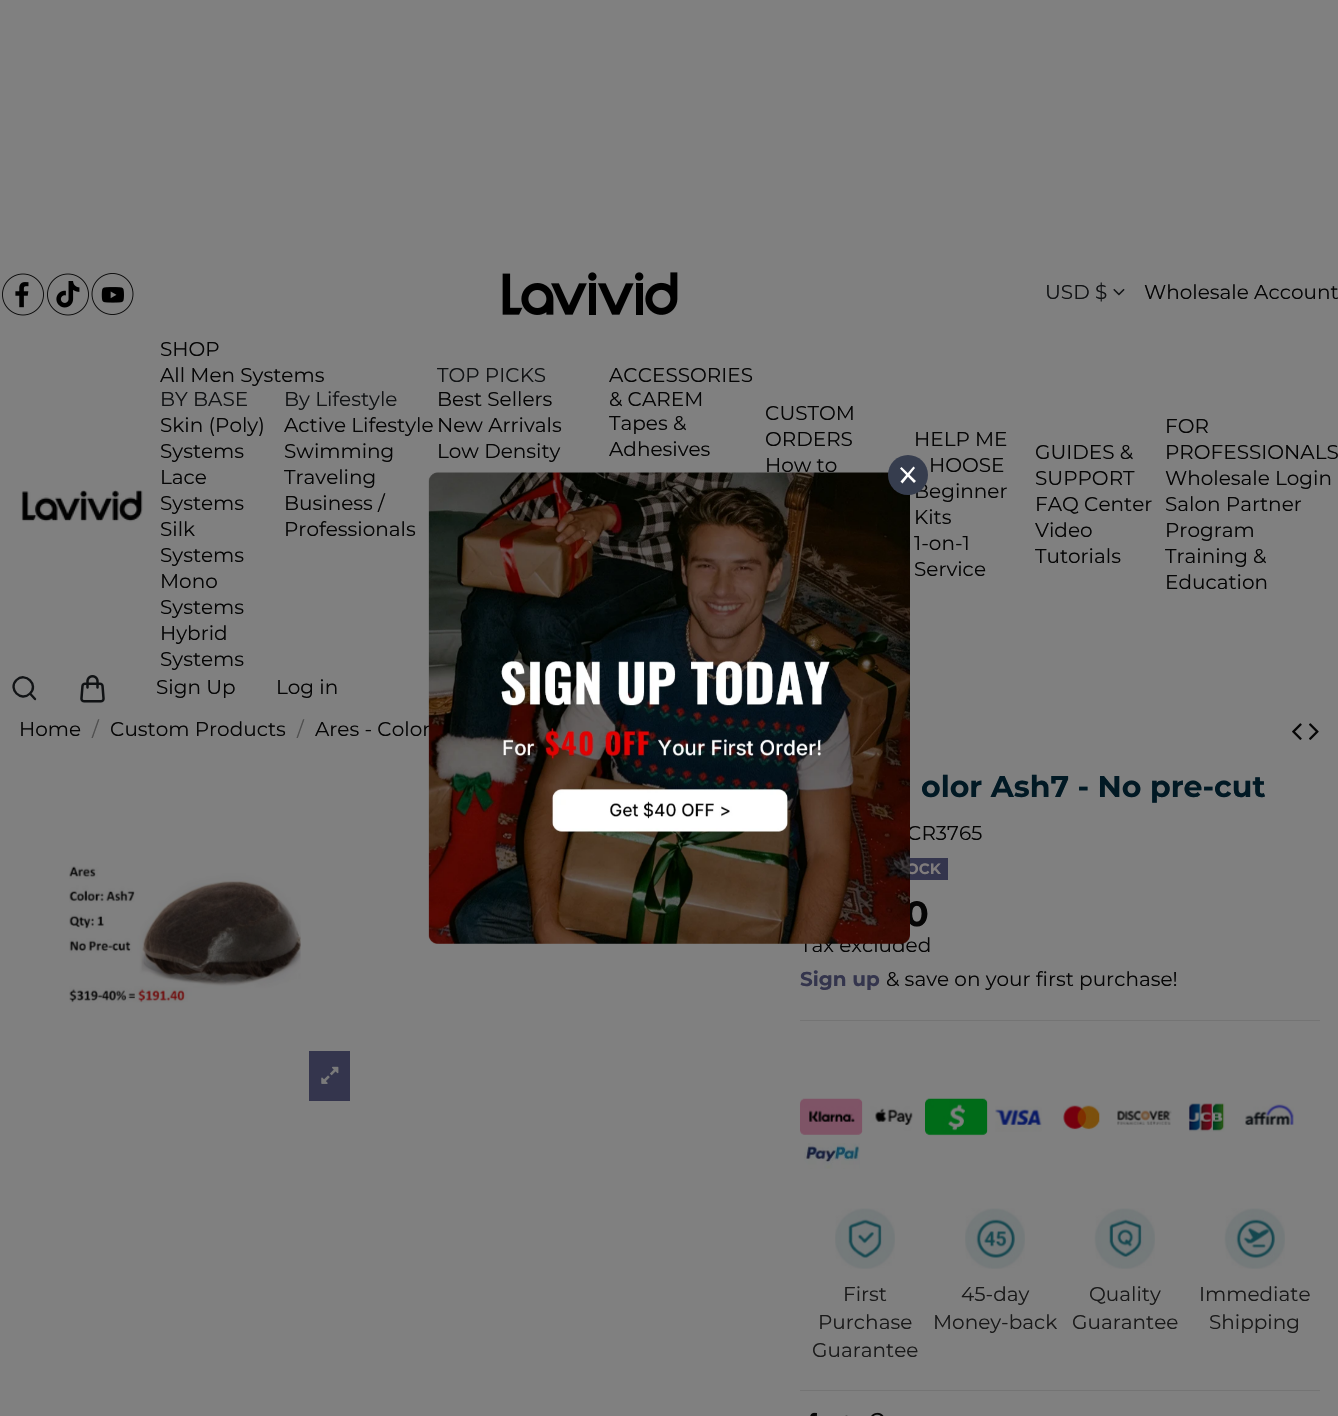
#include "include/core/SkBlurTypes.h"
#include "include/core/SkCanvas.h"
#include "include/core/SkData.h"
#include "include/core/SkFont.h"
#include "include/core/SkFontMgr.h"
#include "include/core/SkImage.h"
#include "include/core/SkMaskFilter.h"
#include "include/core/SkPaint.h"
#include "include/core/SkPathBuilder.h"
#include "include/core/SkTextBlob.h"
#include "include/effects/SkDashPathEffect.h"
#include "include/effects/SkGradientShader.h"
#include "include/utils/SkParsePath.h"

extern sk_sp<SkFontMgr> fontMgr;

void draw(SkCanvas* canvas) {
  SkPaint p;
  p.setAntiAlias(true);
  canvas->clear(SkColorSetRGB(128, 128, 128));
  canvas->drawImageRect(SkImages::DeferredFromEncodedData(SkData::MakeFromFileName("images/1.png")), SkRect::MakeLTRB(2, 273, 44, 316), SkSamplingOptions());
  canvas->drawImageRect(SkImages::DeferredFromEncodedData(SkData::MakeFromFileName("images/2.png")), SkRect::MakeLTRB(47, 273, 89, 316), SkSamplingOptions());
  canvas->drawImageRect(SkImages::DeferredFromEncodedData(SkData::MakeFromFileName("images/3.png")), SkRect::MakeLTRB(91, 273, 134, 315), SkSamplingOptions());
  canvas->drawImageRect(SkImages::DeferredFromEncodedData(SkData::MakeFromFileName("images/4.png")), SkRect::MakeLTRB(502, 272, 678, 315), SkSamplingOptions());
  canvas->drawImageRect(SkImages::DeferredFromEncodedData(SkData::MakeFromFileName("images/5.png")), SkRect::MakeLTRB(1113, 288, 1125, 296), SkSamplingOptions());
  canvas->drawImageRect(SkImages::DeferredFromEncodedData(SkData::MakeFromFileName("images/6.png")), SkRect::MakeLTRB(21, 490, 143, 522), SkSamplingOptions());
  p.setStyle(SkPaint::kStroke_Style);
  p.setStrokeWidth(2.4f);
  p.setStrokeCap(SkPaint::kRound_Cap);
  p.setStrokeJoin(SkPaint::kRound_Join);
  p.setColor(SkColorSetRGB(17, 19, 21));
  canvas->drawPath(SkPathBuilder().moveTo(35, 699).lineTo(30, 693.5f).moveTo(30, 693.5f).cubicTo(39, 685, 25.5f, 671.5f, 16.5f, 680).cubicTo(7.5f, 689, 21, 702.5f, 30, 693.5f).detach(), p);
  canvas->drawImageRect(SkImages::DeferredFromEncodedData(SkData::MakeFromFileName("images/7.png")), SkRect::MakeLTRB(80, 675, 105, 703), SkSamplingOptions());
  canvas->drawImageRect(SkImages::DeferredFromEncodedData(SkData::MakeFromFileName("images/8.png")), SkRect::MakeLTRB(1292, 723, 1302, 740), SkSamplingOptions());
  canvas->drawImageRect(SkImages::DeferredFromEncodedData(SkData::MakeFromFileName("images/9.png")), SkRect::MakeLTRB(1309, 723, 1319, 740), SkSamplingOptions());
  canvas->drawImageRect(SkImages::DeferredFromEncodedData(SkData::MakeFromFileName("images/10.png")), SkRect::MakeLTRB(69, 866, 301, 1003), SkSamplingOptions());
  p.setStyle(SkPaint::kFill_Style);
  p.setColor(SkColorSetRGB(52, 53, 77));
  canvas->drawRect(SkRect::MakeLTRB(309, 1051, 350, 1101), p);
  canvas->drawImageRect(SkImages::DeferredFromEncodedData(SkData::MakeFromFileName("images/11.png")), SkRect::MakeLTRB(321, 1066, 339, 1084), SkSamplingOptions());
  p.setColor(SkColorSetRGB(116, 116, 116));
  canvas->drawRect(SkRect::MakeLTRB(800, 1020, 1320, 1021), p);
  p.setColor(SkColorSetRGB(52, 53, 77));
  canvas->drawRect(SkRect::MakeLTRB(910, 858, 948, 880), p);
  canvas->drawImageRect(SkImages::DeferredFromEncodedData(SkData::MakeFromFileName("images/12.png")), SkRect::MakeLTRB(800, 1098, 863, 1135), SkSamplingOptions());
  canvas->drawImageRect(SkImages::DeferredFromEncodedData(SkData::MakeFromFileName("images/13.png")), SkRect::MakeLTRB(862, 1102, 913, 1131), SkSamplingOptions());
  canvas->drawImageRect(SkImages::DeferredFromEncodedData(SkData::MakeFromFileName("images/14.png")), SkRect::MakeLTRB(925, 1098, 988, 1136), SkSamplingOptions());
  canvas->drawImageRect(SkImages::DeferredFromEncodedData(SkData::MakeFromFileName("images/15.png")), SkRect::MakeLTRB(987, 1102, 1042, 1132), SkSamplingOptions());
  canvas->drawImageRect(SkImages::DeferredFromEncodedData(SkData::MakeFromFileName("images/16.png")), SkRect::MakeLTRB(1063, 1105, 1100, 1130), SkSamplingOptions());
  canvas->drawImageRect(SkImages::DeferredFromEncodedData(SkData::MakeFromFileName("images/17.png")), SkRect::MakeLTRB(1117, 1110, 1172, 1125), SkSamplingOptions());
  canvas->drawImageRect(SkImages::DeferredFromEncodedData(SkData::MakeFromFileName("images/18.png")), SkRect::MakeLTRB(1189, 1103, 1225, 1132), SkSamplingOptions());
  canvas->drawImageRect(SkImages::DeferredFromEncodedData(SkData::MakeFromFileName("images/19.png")), SkRect::MakeLTRB(1245, 1104, 1294, 1125), SkSamplingOptions());
  canvas->drawImageRect(SkImages::DeferredFromEncodedData(SkData::MakeFromFileName("images/20.png")), SkRect::MakeLTRB(804, 1143, 860, 1169), SkSamplingOptions());
  canvas->drawImageRect(SkImages::DeferredFromEncodedData(SkData::MakeFromFileName("images/21.png")), SkRect::MakeLTRB(835, 1208, 895, 1269), SkSamplingOptions());
  canvas->drawImageRect(SkImages::DeferredFromEncodedData(SkData::MakeFromFileName("images/22.png")), SkRect::MakeLTRB(965, 1208, 1025, 1269), SkSamplingOptions());
  canvas->drawImageRect(SkImages::DeferredFromEncodedData(SkData::MakeFromFileName("images/23.png")), SkRect::MakeLTRB(1094, 1208, 1155, 1269), SkSamplingOptions());
  canvas->drawImageRect(SkImages::DeferredFromEncodedData(SkData::MakeFromFileName("images/24.png")), SkRect::MakeLTRB(1224, 1208, 1285, 1269), SkSamplingOptions());
  p.setColor(SkColorSetRGB(116, 116, 116));
  canvas->drawRect(SkRect::MakeLTRB(800, 1390, 1320, 1391), p);
  canvas->drawImageRect(SkImages::DeferredFromEncodedData(SkData::MakeFromFileName("images/25.png")), SkRect::MakeLTRB(810, 1412, 817, 1416), SkSamplingOptions());
  canvas->drawImageRect(SkImages::DeferredFromEncodedData(SkData::MakeFromFileName("images/26.png")), SkRect::MakeLTRB(845, 1415, 848, 1416), SkSamplingOptions());
  canvas->drawImageRect(SkImages::DeferredFromEncodedData(SkData::MakeFromFileName("images/27.png")), SkRect::MakeLTRB(871, 1412, 884, 1416), SkSamplingOptions());
  SkFont font1(fontMgr->matchFamilyStyle("Montserrat", SkFontStyle::Normal()), 20);
  font1.setSubpixel(true);
  p.setColor(SkColorSetRGB(17, 19, 21));
  canvas->drawString("USD $", 1045, 299, font1, p);
  p.setColor(SkColorSetRGB(5, 5, 5));
  canvas->drawString("Wholesale Account", 1144, 299, font1, p);
  canvas->drawString("SHOP", 160, 356, font1, p);
  canvas->drawString("All Men Systems", 160, 382, font1, p);
  p.setColor(SkColorSetRGB(17, 19, 21));
  canvas->drawString("BY BASE", 160, 406, font1, p);
  p.setColor(SkColorSetRGB(5, 5, 5));
  canvas->drawString("Skin (Poly)", 160, 432, font1, p);
  canvas->drawString("Systems", 160, 458, font1, p);
  canvas->drawString("Lace", 160, 484, font1, p);
  canvas->drawString("Systems", 160, 510, font1, p);
  canvas->drawString("Silk", 160, 536, font1, p);
  canvas->drawString("Systems", 160, 562, font1, p);
  canvas->drawString("Mono", 160, 588, font1, p);
  canvas->drawString("Systems", 160, 614, font1, p);
  canvas->drawString("Hybrid", 160, 640, font1, p);
  canvas->drawString("Systems", 160, 666, font1, p);
  p.setColor(SkColorSetRGB(17, 19, 21));
  canvas->drawString("By Lifestyle", 284, 406, font1, p);
  p.setColor(SkColorSetRGB(5, 5, 5));
  canvas->drawString("Active Lifestyle", 284, 432, font1, p);
  canvas->drawString("Swimming", 284, 458, font1, p);
  canvas->drawString("Traveling", 284, 484, font1, p);
  canvas->drawString("Business /", 284, 510, font1, p);
  canvas->drawString("Professionals", 284, 536, font1, p);
  p.setColor(SkColorSetRGB(17, 19, 21));
  canvas->drawString("TOP PICKS", 437, 382, font1, p);
  p.setColor(SkColorSetRGB(5, 5, 5));
  canvas->drawString("Best Sellers", 437, 406, font1, p);
  canvas->drawString("New Arrivals", 437, 432, font1, p);
  canvas->drawString("Low Density", 437, 458, font1, p);
  canvas->drawString("ACCESSORIES", 609, 382, font1, p);
  canvas->drawString("& CAREM", 609, 406, font1, p);
  canvas->drawString("Tapes &", 609, 430, font1, p);
  canvas->drawString("Adhesives", 609, 456, font1, p);
  canvas->drawString("CUSTOM", 765, 420, font1, p);
  canvas->drawString("ORDERS", 765, 446, font1, p);
  canvas->drawString("How to", 765, 472, font1, p);
  canvas->drawString("HELP ME", 914, 446, font1, p);
  canvas->drawString("HOOSE", 929, 472, font1, p);
  canvas->drawString("Beginner", 914, 498, font1, p);
  canvas->drawString("Kits", 914, 524, font1, p);
  canvas->drawString("1-on-1", 914, 550, font1, p);
  canvas->drawString("Service", 914, 576, font1, p);
  canvas->drawString("GUIDES &", 1035, 459, font1, p);
  canvas->drawString("SUPPORT", 1035, 485, font1, p);
  canvas->drawString("FAQ Center", 1035, 511, font1, p);
  canvas->drawString("Video", 1035, 537, font1, p);
  canvas->drawString("Tutorials", 1035, 563, font1, p);
  canvas->drawString("FOR", 1165, 433, font1, p);
  canvas->drawString("PROFESSIONALS", 1165, 459, font1, p);
  canvas->drawString("Wholesale Login", 1165, 485, font1, p);
  canvas->drawString("Salon Partner", 1165, 511, font1, p);
  canvas->drawString("Program", 1165, 537, font1, p);
  canvas->drawString("Training &", 1165, 563, font1, p);
  canvas->drawString("Education", 1165, 589, font1, p);
  canvas->drawString("Sign Up", 156, 694, font1, p);
  canvas->drawString("Log in", 276, 694, font1, p);
  canvas->drawString("Home", 19, 736, font1, p);
  p.setColor(SkColorSetRGB(79, 79, 79));
  canvas->drawString("/", 92, 736, font1, p);
  p.setColor(SkColorSetRGB(5, 5, 5));
  canvas->drawString("Custom Products", 110, 736, font1, p);
  p.setColor(SkColorSetRGB(79, 79, 79));
  canvas->drawString("/", 297, 736, font1, p);
  p.setColor(SkColorSetRGB(5, 5, 5));
  canvas->drawString("Ares - Color", 315, 736, font1, p);
  SkFont font2(fontMgr->matchFamilyStyle("Montserrat", SkFontStyle::Bold()), 30);
  font2.setSubpixel(true);
  p.setColor(SkColorSetRGB(1, 25, 36));
  canvas->drawString("olor Ash7 - No pre-cut", 921, 797, font2, p);
  p.setColor(SkColorSetRGB(5, 5, 5));
  canvas->drawString("CR3765", 907, 840, font1, p);
  SkFont font3(fontMgr->matchFamilyStyle("Montserrat", SkFontStyle::Bold()), 15);
  font3.setSubpixel(true);
  p.setColor(SkColorSetRGB(128, 124, 124));
  canvas->drawString("OCK", 906, 874, font3, p);
  SkFont font4(fontMgr->matchFamilyStyle("Montserrat", SkFontStyle::Bold()), 35);
  font4.setSubpixel(true);
  p.setColor(SkColorSetRGB(5, 5, 5));
  canvas->drawString("0", 905, 926, font4, p);
  canvas->drawString("Tax excluded", 800, 952, font1, p);
  SkFont font5(fontMgr->matchFamilyStyle("Montserrat", SkFontStyle::Bold()), 20);
  font5.setSubpixel(true);
  p.setColor(SkColorSetRGB(52, 53, 77));
  canvas->drawString("Sign up", 800, 986, font5, p);
  p.setColor(SkColorSetRGB(5, 5, 5));
  canvas->drawString("& save on your first purchase!", 886, 986, font1, p);
  p.setColor(SkColorSetRGB(26, 26, 26));
  canvas->drawString("First", 843, 1301, font1, p);
  canvas->drawString("Purchase", 818, 1329, font1, p);
  canvas->drawString("Guarantee", 812, 1357, font1, p);
  canvas->drawString("45-day", 961, 1301, font1, p);
  canvas->drawString("Money-back", 933, 1329, font1, p);
  canvas->drawString("Quality", 1089, 1301, font1, p);
  canvas->drawString("Guarantee", 1072, 1329, font1, p);
  canvas->drawString("Immediate", 1199, 1301, font1, p);
  canvas->drawString("Shipping", 1209, 1329, font1, p);
  canvas->drawImageRect(SkImages::DeferredFromEncodedData(SkData::MakeFromFileName("images/28.png")), SkRect::MakeLTRB(428, 472, 910, 944), SkSamplingOptions());
  p.setColor(SkColorSetRGB(54, 61, 78));
  canvas->drawCircle(908, 475, 20, p);
  p.setColor(SK_ColorWHITE);
  canvas->drawPath(SkPathBuilder().moveTo(901.5f, 467).lineTo(916, 481).lineTo(914, 483).lineTo(900, 468.5f).close().detach(), p);
  canvas->drawPath(SkPathBuilder().moveTo(915, 468).lineTo(902.5f, 483.5f).lineTo(900.5f, 481.5f).lineTo(913.5f, 466.5f).close().detach(), p);
}
